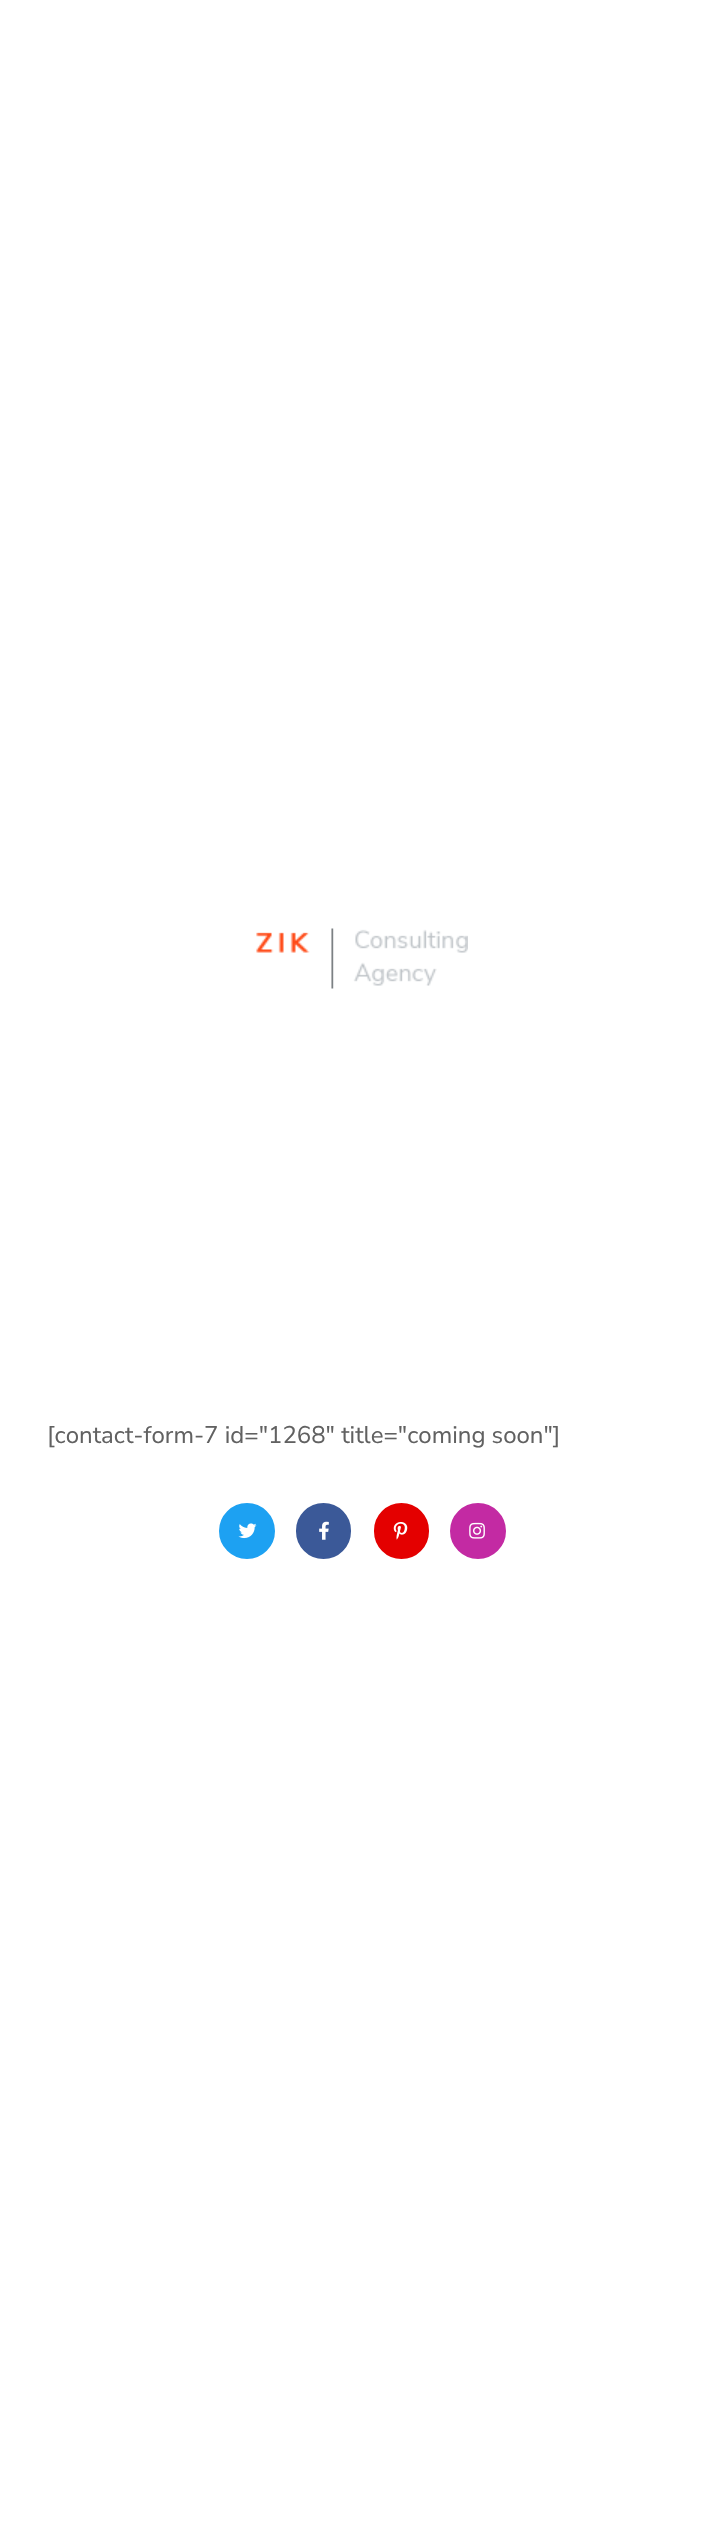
#include "include/core/SkBlurTypes.h"
#include "include/core/SkCanvas.h"
#include "include/core/SkData.h"
#include "include/core/SkFont.h"
#include "include/core/SkFontMgr.h"
#include "include/core/SkImage.h"
#include "include/core/SkMaskFilter.h"
#include "include/core/SkPaint.h"
#include "include/core/SkPathBuilder.h"
#include "include/core/SkTextBlob.h"
#include "include/effects/SkDashPathEffect.h"
#include "include/effects/SkGradientShader.h"
#include "include/utils/SkParsePath.h"

extern sk_sp<SkFontMgr> fontMgr;

void draw(SkCanvas* canvas) {
  SkPaint p;
  p.setAntiAlias(true);
  canvas->clear(SK_ColorWHITE);
  canvas->drawImageRect(SkImages::DeferredFromEncodedData(SkData::MakeFromFileName("images/1.png")), SkRect::MakeLTRB(256, 928, 468, 989), SkSamplingOptions());
  p.setColor(SkColorSetRGB(29, 161, 242));
  canvas->drawCircle(247, 1531, 27, p);
  p.setStyle(SkPaint::kStroke_Style);
  p.setStrokeWidth(2);
  canvas->drawCircle(247, 1531, 27, p);
  canvas->drawImageRect(SkImages::DeferredFromEncodedData(SkData::MakeFromFileName("images/2.png")), SkRect::MakeLTRB(238, 1523, 257, 1539), SkSamplingOptions());
  p.setStyle(SkPaint::kFill_Style);
  p.setColor(SkColorSetRGB(59, 89, 152));
  canvas->drawRoundRect(SkRect::MakeLTRB(297, 1504, 350, 1558), 26.5f, 26.5f, p);
  p.setStyle(SkPaint::kStroke_Style);
  canvas->drawRoundRect(SkRect::MakeLTRB(297, 1504, 350, 1558), 26.5f, 26.5f, p);
  canvas->drawImageRect(SkImages::DeferredFromEncodedData(SkData::MakeFromFileName("images/3.png")), SkRect::MakeLTRB(319, 1521, 329, 1540), SkSamplingOptions());
  p.setStyle(SkPaint::kFill_Style);
  p.setColor(SkColorSetRGB(228, 0, 0));
  canvas->drawRoundRect(SkRect::MakeLTRB(375, 1504, 428, 1558), 26.5f, 26.5f, p);
  p.setStyle(SkPaint::kStroke_Style);
  canvas->drawRoundRect(SkRect::MakeLTRB(375, 1504, 428, 1558), 26.5f, 26.5f, p);
  canvas->drawImageRect(SkImages::DeferredFromEncodedData(SkData::MakeFromFileName("images/4.png")), SkRect::MakeLTRB(393, 1522, 408, 1540), SkSamplingOptions());
  p.setStyle(SkPaint::kFill_Style);
  p.setColor(SkColorSetRGB(195, 42, 163));
  canvas->drawCircle(478, 1531, 27, p);
  p.setStyle(SkPaint::kStroke_Style);
  canvas->drawCircle(478, 1531, 27, p);
  canvas->drawImageRect(SkImages::DeferredFromEncodedData(SkData::MakeFromFileName("images/5.png")), SkRect::MakeLTRB(469, 1522, 485, 1539), SkSamplingOptions());
  SkFont font1(fontMgr->matchFamilyStyle("Nunito Sans", SkFontStyle::Normal()), 24);
  font1.setSubpixel(true);
  p.setStyle(SkPaint::kFill_Style);
  p.setColor(SkColorSetRGB(97, 97, 97));
  canvas->drawString("[contact-form-7 id=\"1268\" title=\"coming soon\"]", 47, 1443, font1, p);
}
